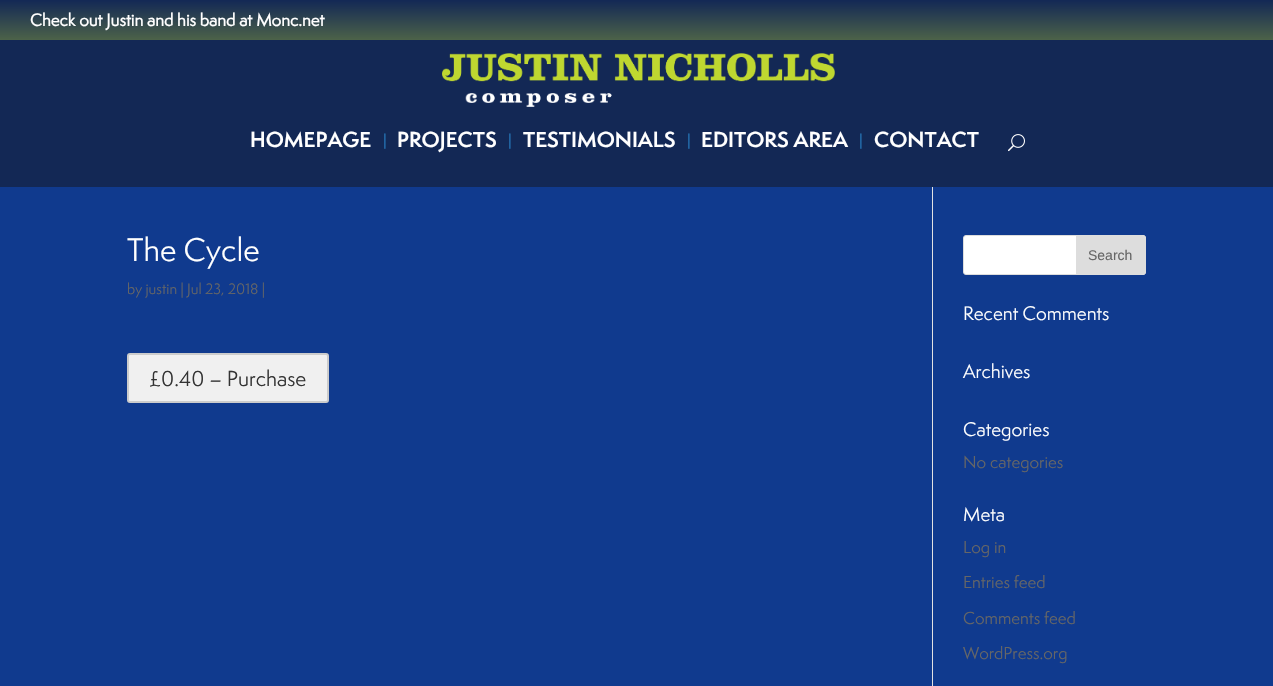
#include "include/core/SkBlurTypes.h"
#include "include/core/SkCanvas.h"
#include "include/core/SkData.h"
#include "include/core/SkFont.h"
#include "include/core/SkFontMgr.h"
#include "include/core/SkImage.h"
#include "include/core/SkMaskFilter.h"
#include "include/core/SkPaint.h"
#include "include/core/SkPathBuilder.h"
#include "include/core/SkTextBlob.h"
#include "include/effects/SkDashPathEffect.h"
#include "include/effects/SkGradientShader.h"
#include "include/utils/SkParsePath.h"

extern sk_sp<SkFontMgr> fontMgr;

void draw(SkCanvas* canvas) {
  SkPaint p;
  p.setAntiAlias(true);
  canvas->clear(SkColorSetRGB(16, 58, 142));
  {
    const SkColor colors[] = {SkColorSetRGB(19, 40, 85), SkColorSetRGB(191, 215, 48), SkColorSetRGB(149, 227, 95)};
    const float stops[] = {0, 0.5f, 1};
    const SkPoint ends[] = {{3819, 0}, {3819, 240}};
    p.setShader(SkGradientShader::MakeLinear(ends, colors, stops, 3, SkTileMode::kClamp));
    p.setAlpha(255);
  }
  canvas->drawRect(SkRect::MakeLTRB(0, 0, 1273, 40), p);
  p.setShader(nullptr);
  p.setColor(SkColorSetRGB(19, 40, 85));
  canvas->drawRect(SkRect::MakeLTRB(0, 40, 1273, 187), p);
  canvas->drawImageRect(SkImages::DeferredFromEncodedData(SkData::MakeFromFileName("images/1.png")), SkRect::MakeLTRB(442, 53, 835, 107), SkSamplingOptions());
  canvas->drawImageRect(SkImages::DeferredFromEncodedData(SkData::MakeFromFileName("images/2.png")), SkRect::MakeLTRB(1008, 134, 1025, 152), SkSamplingOptions());
  p.setColor(SkColorSetRGB(226, 226, 226));
  canvas->drawRect(SkRect::MakeLTRB(932, 187, 933, 686), p);
  p.setColor(SkColorSetRGB(240, 240, 240));
  canvas->drawRoundRect(SkRect::MakeLTRB(128, 354, 328, 402), 2, 2, p);
  p.setStyle(SkPaint::kStroke_Style);
  p.setStrokeWidth(2);
  p.setColor(SkColorSetRGB(204, 204, 204));
  canvas->drawRoundRect(SkRect::MakeLTRB(128, 354, 328, 402), 2, 2, p);
  p.setStyle(SkPaint::kFill_Style);
  p.setColor(SK_ColorWHITE);
  canvas->drawRoundRect(SkRect::MakeLTRB(963.5f, 235.5f, 1145.5f, 274.5f), 2.5f, 2.5f, p);
  p.setStyle(SkPaint::kStroke_Style);
  p.setStrokeWidth(1);
  p.setColor(SkColorSetRGB(221, 221, 221));
  canvas->drawRoundRect(SkRect::MakeLTRB(963.5f, 235.5f, 1145.5f, 274.5f), 2.5f, 2.5f, p);
  p.setStyle(SkPaint::kFill_Style);
  canvas->drawPath(SkPathBuilder().moveTo(1076.5f, 235.5f).lineTo(1143, 235.5f).cubicTo(1144.5f, 235.5f, 1145.5f, 236.5f, 1145.5f, 238).lineTo(1145.5f, 272).cubicTo(1145.5f, 273.5f, 1144.5f, 274.5f, 1143, 274.5f).lineTo(1076.5f, 274.5f).close().detach(), p);
  p.setStyle(SkPaint::kStroke_Style);
  canvas->drawPath(SkPathBuilder().moveTo(1076.5f, 235.5f).lineTo(1143, 235.5f).cubicTo(1144.5f, 235.5f, 1145.5f, 236.5f, 1145.5f, 238).lineTo(1145.5f, 272).cubicTo(1145.5f, 273.5f, 1144.5f, 274.5f, 1143, 274.5f).lineTo(1076.5f, 274.5f).close().detach(), p);
  SkFont font1(fontMgr->matchFamilyStyle("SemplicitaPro", SkFontStyle::Bold()), 16);
  font1.setSubpixel(true);
  p.setStyle(SkPaint::kFill_Style);
  p.setColor(SK_ColorWHITE);
  canvas->drawString("Check out Justin and his band at Monc.net", 30, 26, font1, p);
  SkFont font2(fontMgr->matchFamilyStyle("SemplicitaPro", SkFontStyle(600, SkFontStyle::kNormal_Width, SkFontStyle::kUpright_Slant)), 20);
  font2.setSubpixel(true);
  canvas->drawString("HOMEPAGE", 250, 147, font2, p);
  SkFont font3(fontMgr->matchFamilyStyle("SemplicitaPro", SkFontStyle(600, SkFontStyle::kNormal_Width, SkFontStyle::kUpright_Slant)), 14);
  font3.setSubpixel(true);
  p.setColor(SkColorSetRGB(33, 102, 164));
  canvas->drawString("|", 383, 145, font3, p);
  p.setColor(SK_ColorWHITE);
  canvas->drawString("PROJECTS", 397, 147, font2, p);
  p.setColor(SkColorSetRGB(33, 102, 164));
  canvas->drawString("|", 508, 145, font3, p);
  p.setColor(SK_ColorWHITE);
  canvas->drawString("TESTIMONIALS", 523, 147, font2, p);
  p.setColor(SkColorSetRGB(33, 102, 164));
  canvas->drawString("|", 687, 145, font3, p);
  p.setColor(SK_ColorWHITE);
  canvas->drawString("EDITORS AREA", 701, 147, font2, p);
  p.setColor(SkColorSetRGB(33, 102, 164));
  canvas->drawString("|", 859, 145, font3, p);
  p.setColor(SK_ColorWHITE);
  canvas->drawString("CONTACT", 874, 147, font2, p);
  SkFont font4(fontMgr->matchFamilyStyle("SemplicitaPro", SkFontStyle::Normal()), 30);
  font4.setSubpixel(true);
  canvas->drawString("The Cycle", 127, 261, font4, p);
  SkFont font5(fontMgr->matchFamilyStyle("SemplicitaPro", SkFontStyle::Normal()), 14);
  font5.setSubpixel(true);
  p.setColor(SkColorSetRGB(102, 102, 102));
  canvas->drawString("by justin | Jul 23, 2018 |", 127, 294, font5, p);
  SkFont font6(fontMgr->matchFamilyStyle("SemplicitaPro", SkFontStyle::Normal()), 20);
  font6.setSubpixel(true);
  p.setColor(SkColorSetRGB(51, 51, 51));
  canvas->drawString("£0.40 – Purchase", 149, 386, font6, p);
  SkFont font7(fontMgr->matchFamilyStyle("Liberation Sans", SkFontStyle::Normal()), 14);
  font7.setSubpixel(true);
  p.setColor(SkColorSetRGB(102, 102, 102));
  canvas->drawString("Search", 1088, 260, font7, p);
  SkFont font8(fontMgr->matchFamilyStyle("SemplicitaPro", SkFontStyle::Normal()), 18);
  font8.setSubpixel(true);
  p.setColor(SK_ColorWHITE);
  canvas->drawString("Recent Comments", 963, 320, font8, p);
  canvas->drawString("Archives", 963, 378, font8, p);
  canvas->drawString("Categories", 963, 436, font8, p);
  SkFont font9(fontMgr->matchFamilyStyle("SemplicitaPro", SkFontStyle::Normal()), 16);
  font9.setSubpixel(true);
  p.setColor(SkColorSetRGB(102, 102, 102));
  canvas->drawString("No categories", 963, 468, font9, p);
  p.setColor(SK_ColorWHITE);
  canvas->drawString("Meta", 963, 521, font8, p);
  p.setColor(SkColorSetRGB(102, 102, 102));
  canvas->drawString("Log in", 963, 553, font9, p);
  canvas->drawString("Entries feed", 963, 588, font9, p);
  canvas->drawString("Comments feed", 963, 624, font9, p);
  canvas->drawString("WordPress.org", 963, 659, font9, p);
}
